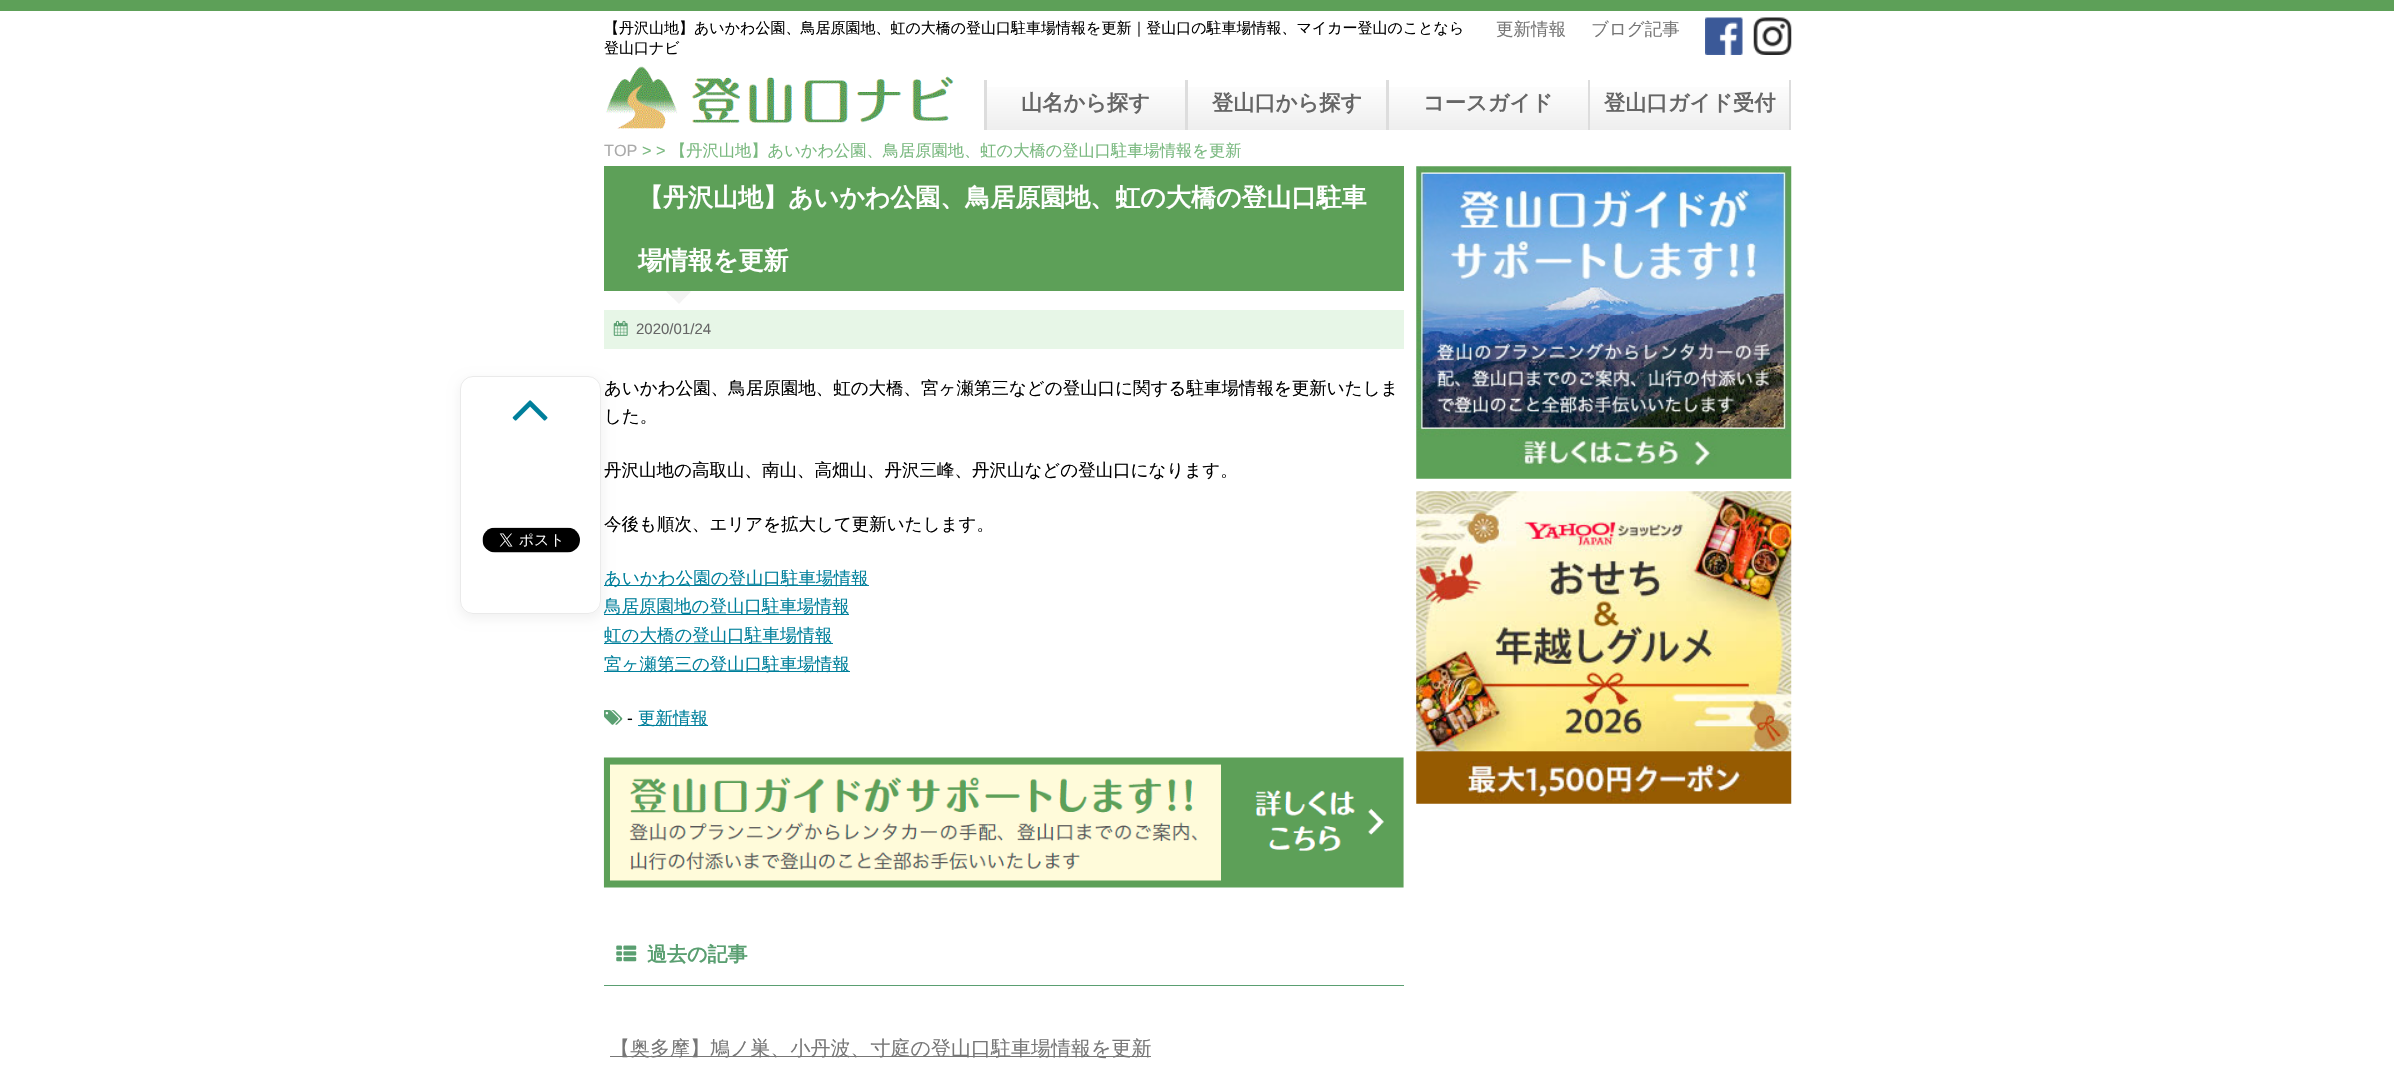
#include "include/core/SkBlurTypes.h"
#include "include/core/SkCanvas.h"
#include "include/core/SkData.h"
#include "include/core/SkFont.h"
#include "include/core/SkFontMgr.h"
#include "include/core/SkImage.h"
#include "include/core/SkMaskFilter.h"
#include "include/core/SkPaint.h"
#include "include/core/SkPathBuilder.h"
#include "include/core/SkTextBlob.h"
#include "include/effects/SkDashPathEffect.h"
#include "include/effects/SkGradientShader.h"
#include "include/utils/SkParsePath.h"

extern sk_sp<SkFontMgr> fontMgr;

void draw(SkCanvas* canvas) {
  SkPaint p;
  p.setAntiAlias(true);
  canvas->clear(SK_ColorWHITE);
  p.setColor(SkColorSetRGB(93, 160, 88));
  canvas->drawRect(SkRect::MakeLTRB(0, 0, 2394, 11), p);
  canvas->drawImageRect(SkImages::DeferredFromEncodedData(SkData::MakeFromFileName("images/1.png")), SkRect::MakeLTRB(1705, 17, 1743, 55), SkSamplingOptions());
  canvas->drawImageRect(SkImages::DeferredFromEncodedData(SkData::MakeFromFileName("images/2.png")), SkRect::MakeLTRB(1753, 17, 1792, 55), SkSamplingOptions());
  canvas->drawImageRect(SkImages::DeferredFromEncodedData(SkData::MakeFromFileName("images/3.png")), SkRect::MakeLTRB(606, 66, 954, 129), SkSamplingOptions());
  {
    const SkColor colors[] = {SK_ColorWHITE, SkColorSetRGB(238, 238, 238)};
    const float stops[] = {0, 1};
    const SkPoint ends[] = {{1086, 80}, {1086, 130}};
    p.setShader(SkGradientShader::MakeLinear(ends, colors, stops, 2, SkTileMode::kClamp));
    p.setAlpha(255);
  }
  canvas->drawRect(SkRect::MakeLTRB(987, 87, 1185, 130), p);
  p.setShader(nullptr);
  p.setColor(SkColorSetRGB(221, 221, 221));
  canvas->drawRect(SkRect::MakeLTRB(1185, 80, 1188, 130), p);
  canvas->drawRect(SkRect::MakeLTRB(984, 80, 987, 130), p);
  {
    const SkColor colors[] = {SK_ColorWHITE, SkColorSetRGB(238, 238, 238)};
    const float stops[] = {0, 1};
    const SkPoint ends[] = {{1287, 80}, {1287, 130}};
    p.setShader(SkGradientShader::MakeLinear(ends, colors, stops, 2, SkTileMode::kClamp));
    p.setAlpha(255);
  }
  canvas->drawRect(SkRect::MakeLTRB(1188, 87, 1386, 130), p);
  p.setShader(nullptr);
  p.setColor(SkColorSetRGB(221, 221, 221));
  canvas->drawRect(SkRect::MakeLTRB(1386, 80, 1389, 130), p);
  {
    const SkColor colors[] = {SK_ColorWHITE, SkColorSetRGB(238, 238, 238)};
    const float stops[] = {0, 1};
    const SkPoint ends[] = {{1488, 80}, {1488, 130}};
    p.setShader(SkGradientShader::MakeLinear(ends, colors, stops, 2, SkTileMode::kClamp));
    p.setAlpha(255);
  }
  canvas->drawRect(SkRect::MakeLTRB(1389, 87, 1588, 130), p);
  p.setShader(nullptr);
  p.setColor(SkColorSetRGB(221, 221, 221));
  canvas->drawRect(SkRect::MakeLTRB(1588, 80, 1590, 130), p);
  {
    const SkColor colors[] = {SK_ColorWHITE, SkColorSetRGB(238, 238, 238)};
    const float stops[] = {0, 1};
    const SkPoint ends[] = {{1689, 80}, {1689, 130}};
    p.setShader(SkGradientShader::MakeLinear(ends, colors, stops, 2, SkTileMode::kClamp));
    p.setAlpha(255);
  }
  canvas->drawRect(SkRect::MakeLTRB(1590, 87, 1789, 130), p);
  p.setShader(nullptr);
  p.setColor(SkColorSetRGB(221, 221, 221));
  canvas->drawRect(SkRect::MakeLTRB(1789, 80, 1791, 130), p);
  p.setColor(SkColorSetRGB(0, 127, 155));
  canvas->drawRect(SkRect::MakeLTRB(604, 585, 869, 586), p);
  canvas->drawRect(SkRect::MakeLTRB(604, 614, 849, 615), p);
  canvas->save();
  canvas->clipPath(SkPathBuilder(SkPathFillType::kEvenOdd).moveTo(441, 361).lineTo(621, 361).lineTo(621, 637).lineTo(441, 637).close().moveTo(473, 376).lineTo(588, 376).cubicTo(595, 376, 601, 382, 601, 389).lineTo(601, 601).cubicTo(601, 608, 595, 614, 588, 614).lineTo(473, 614).cubicTo(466, 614, 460, 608, 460, 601).lineTo(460, 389).cubicTo(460, 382, 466, 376, 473, 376).close().detach(), true);
  p.setColor(SkColorSetARGB(13, 0, 0, 0));
  p.setMaskFilter(SkMaskFilter::MakeBlur(kNormal_SkBlurStyle, 5.5f));
  canvas->drawRoundRect(SkRect::MakeLTRB(459, 379, 603, 619), 14, 14, p);
  p.setMaskFilter(nullptr);
  canvas->restore();
  p.setStyle(SkPaint::kStroke_Style);
  p.setStrokeWidth(1);
  p.setColor(SkColorSetRGB(234, 234, 234));
  canvas->drawRoundRect(SkRect::MakeLTRB(460.5f, 376.5f, 600.5f, 613.5f), 12.5f, 12.5f, p);
  canvas->drawImageRect(SkImages::DeferredFromEncodedData(SkData::MakeFromFileName("images/4.png")), SkRect::MakeLTRB(512, 400, 548, 421), SkSamplingOptions());
  canvas->drawImageRect(SkImages::DeferredFromEncodedData(SkData::MakeFromFileName("images/5.png")), SkRect::MakeLTRB(482, 527, 580, 553), SkSamplingOptions());
  p.setStyle(SkPaint::kFill_Style);
  p.setColor(SkColorSetRGB(93, 160, 88));
  canvas->drawRect(SkRect::MakeLTRB(604, 166, 1404, 291), p);
  p.setColor(SkColorSetRGB(243, 243, 243));
  canvas->drawPath(SkPathBuilder().moveTo(666, 291).lineTo(691, 291).lineTo(679, 304).close().detach(), p);
  canvas->drawPath(SkPathBuilder().moveTo(667, 292).lineTo(668, 291).lineTo(689.5f, 291).lineTo(690.5f, 292).lineTo(685, 297.5f).lineTo(672.5f, 297.5f).close().detach(), p);
  p.setColor(SkColorSetRGB(231, 246, 231));
  canvas->drawRect(SkRect::MakeLTRB(604, 310, 1404, 349), p);
  canvas->drawImageRect(SkImages::DeferredFromEncodedData(SkData::MakeFromFileName("images/6.png")), SkRect::MakeLTRB(613, 320, 628, 336), SkSamplingOptions());
  p.setColor(SkColorSetRGB(0, 127, 155));
  canvas->drawRect(SkRect::MakeLTRB(604, 643, 833, 644), p);
  canvas->drawRect(SkRect::MakeLTRB(604, 671, 850, 672), p);
  canvas->drawImageRect(SkImages::DeferredFromEncodedData(SkData::MakeFromFileName("images/7.png")), SkRect::MakeLTRB(604, 710, 623, 725), SkSamplingOptions());
  canvas->drawRect(SkRect::MakeLTRB(638, 725, 708, 726), p);
  canvas->drawImageRect(SkImages::DeferredFromEncodedData(SkData::MakeFromFileName("images/8.png")), SkRect::MakeLTRB(603, 757, 1404, 888), SkSamplingOptions());
  p.setColor(SkColorSetRGB(90, 159, 113));
  canvas->drawRect(SkRect::MakeLTRB(604, 985, 1404, 986), p);
  canvas->drawImageRect(SkImages::DeferredFromEncodedData(SkData::MakeFromFileName("images/9.png")), SkRect::MakeLTRB(616, 945, 637, 962), SkSamplingOptions());
  p.setColor(SkColorSetRGB(119, 119, 119));
  canvas->drawRect(SkRect::MakeLTRB(610, 1056, 1151, 1057), p);
  canvas->drawImageRect(SkImages::DeferredFromEncodedData(SkData::MakeFromFileName("images/10.png")), SkRect::MakeLTRB(1416, 166, 1792, 479), SkSamplingOptions());
  canvas->drawImageRect(SkImages::DeferredFromEncodedData(SkData::MakeFromFileName("images/11.png")), SkRect::MakeLTRB(1416, 491, 1792, 804), SkSamplingOptions());
  SkFont font1(fontMgr->matchFamilyStyle("WenQuanYi Zen Hei", SkFontStyle(500, SkFontStyle::kNormal_Width, SkFontStyle::kUpright_Slant)), 15);
  font1.setSubpixel(true);
  p.setColor(SK_ColorBLACK);
  canvas->drawString("【丹沢山地】あいかわ公園、鳥居原園地、虹の大橋の登山口駐車場情報を更新｜登山口の駐車場情報、マイカー登山のことなら", 604, 33, font1, p);
  canvas->drawString("登山口ナビ", 604, 53, font1, p);
  SkFont font2(fontMgr->matchFamilyStyle("WenQuanYi Zen Hei", SkFontStyle(500, SkFontStyle::kNormal_Width, SkFontStyle::kUpright_Slant)), 17.5f);
  font2.setSubpixel(true);
  p.setColor(SkColorSetRGB(119, 119, 119));
  canvas->drawString("更新情報", 1496, 35, font2, p);
  canvas->drawString("ブログ記事", 1591, 35, font2, p);
  SkFont font3(fontMgr->matchFamilyStyle("WenQuanYi Zen Hei", SkFontStyle::Bold()), 21.25f);
  font3.setSubpixel(true);
  p.setColor(SkColorSetRGB(102, 102, 102));
  canvas->drawString("山名から探す", 1021, 110, font3, p);
  canvas->drawString("登山口から探す", 1212, 110, font3, p);
  canvas->drawString("コースガイド", 1423, 110, font3, p);
  canvas->drawString("登山口ガイド受付", 1604, 110, font3, p);
  SkFont font4(fontMgr->matchFamilyStyle("Liberation Sans", SkFontStyle::Normal()), 16.25f);
  font4.setSubpixel(true);
  p.setColor(SkColorSetRGB(170, 170, 170));
  canvas->drawString("TOP", 604, 156, font4, p);
  p.setColor(SkColorSetRGB(122, 185, 128));
  canvas->drawString("> >", 642, 156, font4, p);
  SkFont font5(fontMgr->matchFamilyStyle("WenQuanYi Zen Hei", SkFontStyle(500, SkFontStyle::kNormal_Width, SkFontStyle::kUpright_Slant)), 16.25f);
  font5.setSubpixel(true);
  canvas->drawString("【丹沢山地】あいかわ公園、鳥居原園地、虹の大橋の登山口駐車場情報を更新", 670, 156, font5, p);
  SkFont font6(fontMgr->matchFamilyStyle("WenQuanYi Zen Hei", SkFontStyle::Bold()), 25);
  font6.setSubpixel(true);
  p.setColor(SK_ColorWHITE);
  canvas->drawString("【丹沢山地】あいかわ公園、鳥居原園地、虹の大橋の登山口駐車", 638, 206, font6, p);
  canvas->drawString("場情報を更新", 638, 269, font6, p);
  SkFont font7(fontMgr->matchFamilyStyle("Liberation Sans", SkFontStyle::Normal()), 15);
  font7.setSubpixel(true);
  p.setColor(SkColorSetRGB(102, 102, 102));
  canvas->drawString("2020/01/24", 636, 334, font7, p);
  p.setColor(SK_ColorBLACK);
  canvas->drawString("あいかわ公園、鳥居原園地、虹の大橋、宮ヶ瀬第三などの登山口に関する駐車場情報を更新いたしま", 604, 394, font2, p);
  canvas->drawString("した。", 604, 422, font2, p);
  canvas->drawString("丹沢山地の高取山、南山、高畑山、丹沢三峰、丹沢山などの登山口になります。", 604, 476, font2, p);
  canvas->drawString("今後も順次、エリアを拡大して更新いたします。", 604, 530, font2, p);
  p.setColor(SkColorSetRGB(0, 127, 155));
  canvas->drawString("あいかわ公園の登山口駐車場情報", 604, 584, font2, p);
  canvas->drawString("鳥居原園地の登山口駐車場情報", 604, 612, font2, p);
  canvas->drawString("虹の大橋の登山口駐車場情報", 604, 641, font2, p);
  canvas->drawString("宮ヶ瀬第三の登山口駐車場情報", 604, 670, font2, p);
  SkFont font8(fontMgr->matchFamilyStyle("Liberation Sans", SkFontStyle::Normal()), 17.5f);
  font8.setSubpixel(true);
  p.setColor(SK_ColorBLACK);
  canvas->drawString("-", 627, 724, font8, p);
  p.setColor(SkColorSetRGB(0, 127, 155));
  canvas->drawString("更新情報", 638, 724, font2, p);
  SkFont font9(fontMgr->matchFamilyStyle("WenQuanYi Zen Hei", SkFontStyle::Bold()), 20);
  font9.setSubpixel(true);
  p.setColor(SkColorSetRGB(90, 159, 113));
  canvas->drawString("過去の記事", 647, 961, font9, p);
  SkFont font10(fontMgr->matchFamilyStyle("WenQuanYi Zen Hei", SkFontStyle(500, SkFontStyle::kNormal_Width, SkFontStyle::kUpright_Slant)), 20);
  font10.setSubpixel(true);
  p.setColor(SkColorSetRGB(119, 119, 119));
  canvas->drawString("【奥多摩】鳩ノ巣、小丹波、寸庭の登山口駐車場情報を更新", 610, 1055, font10, p);
}
